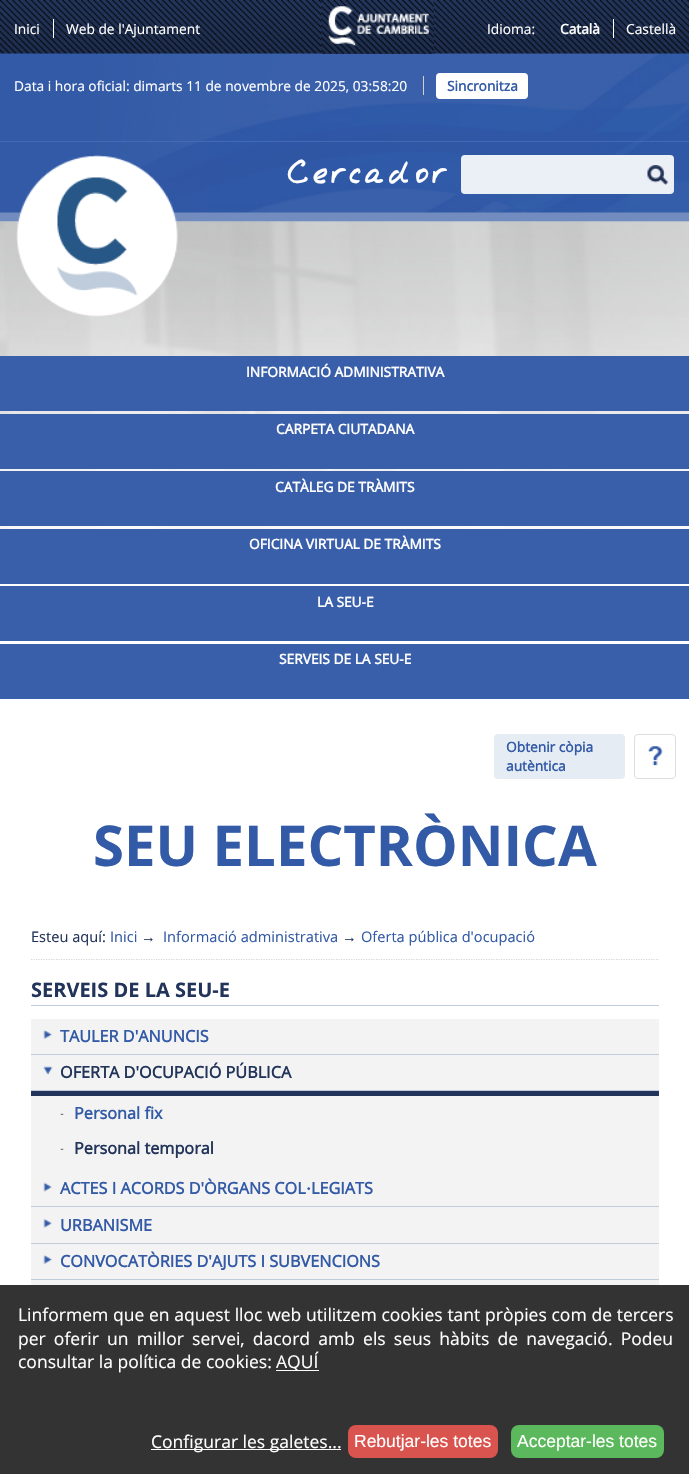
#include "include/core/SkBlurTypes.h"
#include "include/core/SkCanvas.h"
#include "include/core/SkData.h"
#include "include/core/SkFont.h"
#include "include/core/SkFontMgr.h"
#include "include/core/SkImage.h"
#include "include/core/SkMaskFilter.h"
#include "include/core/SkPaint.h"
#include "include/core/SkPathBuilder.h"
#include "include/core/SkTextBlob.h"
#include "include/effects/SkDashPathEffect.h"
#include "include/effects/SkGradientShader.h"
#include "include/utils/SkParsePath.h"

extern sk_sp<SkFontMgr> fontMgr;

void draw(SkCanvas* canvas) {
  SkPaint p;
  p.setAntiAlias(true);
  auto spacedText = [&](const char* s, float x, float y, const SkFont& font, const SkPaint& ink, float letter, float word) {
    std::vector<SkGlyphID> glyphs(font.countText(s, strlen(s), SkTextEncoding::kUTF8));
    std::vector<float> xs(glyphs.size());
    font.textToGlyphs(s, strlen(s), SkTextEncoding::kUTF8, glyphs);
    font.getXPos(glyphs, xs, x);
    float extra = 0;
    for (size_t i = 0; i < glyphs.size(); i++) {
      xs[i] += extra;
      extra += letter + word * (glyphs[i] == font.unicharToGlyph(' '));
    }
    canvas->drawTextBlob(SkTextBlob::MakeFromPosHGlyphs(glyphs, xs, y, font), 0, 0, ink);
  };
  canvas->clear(SK_ColorWHITE);
  canvas->drawImageRect(SkImages::DeferredFromEncodedData(SkData::MakeFromFileName("images/1.png")), SkRect::MakeLTRB(0, 0, 689, 222), SkSamplingOptions());
  canvas->drawImageRect(SkImages::DeferredFromEncodedData(SkData::MakeFromFileName("images/2.png")), SkRect::MakeLTRB(0, 221, 689, 529), SkSamplingOptions());
  canvas->drawImageRect(SkImages::DeferredFromEncodedData(SkData::MakeFromFileName("images/3.png")), SkRect::MakeLTRB(0, 53, 689, 222), SkSamplingOptions());
  p.setColor(SK_ColorWHITE);
  canvas->drawRect(SkRect::MakeLTRB(53, 19, 54, 38), p);
  canvas->drawImageRect(SkImages::DeferredFromEncodedData(SkData::MakeFromFileName("images/4.png")), SkRect::MakeLTRB(321, 0, 434, 54), SkSamplingOptions());
  canvas->drawRect(SkRect::MakeLTRB(613, 19, 614, 38), p);
  p.setColor(SkColorSetRGB(67, 106, 181));
  canvas->drawRect(SkRect::MakeLTRB(0, 141, 689, 142), p);
  p.setColor(SkColorSetRGB(210, 206, 202));
  canvas->drawRect(SkRect::MakeLTRB(423, 76, 424, 95), p);
  p.setColor(SK_ColorWHITE);
  canvas->drawRoundRect(SkRect::MakeLTRB(436, 73, 528, 99), 4, 4, p);
  p.setColor(SkColorSetRGB(235, 239, 246));
  canvas->drawRoundRect(SkRect::MakeLTRB(461, 155, 674, 194), 4, 4, p);
  canvas->drawImageRect(SkImages::DeferredFromEncodedData(SkData::MakeFromFileName("images/5.png")), SkRect::MakeLTRB(647, 165, 669, 185), SkSamplingOptions());
  canvas->drawImageRect(SkImages::DeferredFromEncodedData(SkData::MakeFromFileName("images/6.png")), SkRect::MakeLTRB(16, 155, 178, 317), SkSamplingOptions());
  p.setColor(SkColorSetRGB(57, 95, 170));
  canvas->drawRect(SkRect::MakeLTRB(0, 356, 689, 411), p);
  canvas->drawRect(SkRect::MakeLTRB(0, 414, 689, 469), p);
  canvas->drawRect(SkRect::MakeLTRB(0, 471, 689, 526), p);
  canvas->drawRect(SkRect::MakeLTRB(0, 529, 689, 584), p);
  canvas->drawRect(SkRect::MakeLTRB(0, 586, 689, 641), p);
  canvas->drawRect(SkRect::MakeLTRB(0, 644, 689, 699), p);
  p.setColor(SkColorSetRGB(230, 236, 243));
  canvas->drawRoundRect(SkRect::MakeLTRB(494, 734, 625, 779), 4, 4, p);
  p.setStyle(SkPaint::kStroke_Style);
  p.setStrokeWidth(1);
  p.setColor(SkColorSetRGB(221, 221, 221));
  canvas->drawRoundRect(SkRect::MakeLTRB(634.5f, 734.5f, 675.5f, 778.5f), 3.5f, 3.5f, p);
  canvas->drawImageRect(SkImages::DeferredFromEncodedData(SkData::MakeFromFileName("images/7.png")), SkRect::MakeLTRB(648, 746, 663, 766), SkSamplingOptions());
  p.setStrokeWidth(1.2f);
  p.setColor(SkColorSetRGB(217, 213, 209));
  p.setPathEffect(SkDashPathEffect::Make({{1.25f, 1.25f}}, 0));
  canvas->drawPath(SkPathBuilder().moveTo(31, 959.5f).lineTo(659, 959.5f).detach(), p);
  p.setPathEffect(nullptr);
  p.setStyle(SkPaint::kFill_Style);
  p.setColor(SkColorSetRGB(190, 204, 219));
  canvas->drawRect(SkRect::MakeLTRB(31, 1005, 659, 1006), p);
  p.setColor(SkColorSetRGB(243, 243, 243));
  canvas->drawRect(SkRect::MakeLTRB(31, 1019, 659, 1054), p);
  canvas->drawImageRect(SkImages::DeferredFromEncodedData(SkData::MakeFromFileName("images/8.png")), SkRect::MakeLTRB(43, 1030, 52, 1039), SkSamplingOptions());
  p.setColor(SkColorSetRGB(190, 204, 219));
  canvas->drawRect(SkRect::MakeLTRB(31, 1054, 659, 1055), p);
  p.setColor(SkColorSetRGB(243, 243, 243));
  canvas->drawRect(SkRect::MakeLTRB(31, 1055, 659, 1243), p);
  canvas->drawImageRect(SkImages::DeferredFromEncodedData(SkData::MakeFromFileName("images/9.png")), SkRect::MakeLTRB(43, 1066, 53, 1075), SkSamplingOptions());
  p.setColor(SkColorSetRGB(190, 204, 219));
  canvas->drawRect(SkRect::MakeLTRB(31, 1090, 659, 1091), p);
  p.setColor(SkColorSetRGB(34, 52, 89));
  canvas->drawRect(SkRect::MakeLTRB(31, 1091, 659, 1096), p);
  canvas->drawImageRect(SkImages::DeferredFromEncodedData(SkData::MakeFromFileName("images/10.png")), SkRect::MakeLTRB(60, 1113, 64, 1115), SkSamplingOptions());
  canvas->drawImageRect(SkImages::DeferredFromEncodedData(SkData::MakeFromFileName("images/10.png")), SkRect::MakeLTRB(60, 1148, 64, 1150), SkSamplingOptions());
  canvas->drawImageRect(SkImages::DeferredFromEncodedData(SkData::MakeFromFileName("images/11.png")), SkRect::MakeLTRB(43, 1182, 52, 1192), SkSamplingOptions());
  p.setColor(SkColorSetRGB(190, 204, 219));
  canvas->drawRect(SkRect::MakeLTRB(31, 1206, 659, 1207), p);
  canvas->drawImageRect(SkImages::DeferredFromEncodedData(SkData::MakeFromFileName("images/12.png")), SkRect::MakeLTRB(43, 1218, 52, 1228), SkSamplingOptions());
  canvas->drawRect(SkRect::MakeLTRB(31, 1243, 659, 1244), p);
  p.setColor(SkColorSetRGB(243, 243, 243));
  canvas->drawRect(SkRect::MakeLTRB(31, 1244, 659, 1279), p);
  canvas->drawImageRect(SkImages::DeferredFromEncodedData(SkData::MakeFromFileName("images/8.png")), SkRect::MakeLTRB(43, 1255, 52, 1264), SkSamplingOptions());
  p.setColor(SkColorSetRGB(190, 204, 219));
  canvas->drawRect(SkRect::MakeLTRB(31, 1279, 659, 1280), p);
  p.setColor(SkColorSetRGB(243, 243, 243));
  canvas->drawRect(SkRect::MakeLTRB(31, 1280, 659, 1285), p);
  p.setColor(SkColorSetRGB(51, 51, 51));
  canvas->drawRect(SkRect::MakeLTRB(0, 1285, 689, 1474), p);
  p.setColor(SK_ColorWHITE);
  canvas->drawRect(SkRect::MakeLTRB(276, 1370, 319, 1371), p);
  canvas->drawRect(SkRect::MakeLTRB(151, 1449, 341, 1450), p);
  p.setColor(SkColorSetRGB(217, 83, 79));
  canvas->drawRoundRect(SkRect::MakeLTRB(348, 1425, 498, 1458), 8, 8, p);
  p.setColor(SkColorSetRGB(92, 184, 92));
  canvas->drawRoundRect(SkRect::MakeLTRB(511, 1425, 664, 1458), 8, 8, p);
  SkFont font1(fontMgr->matchFamilyStyle("Open Sans", SkFontStyle::Normal()), 13.75f);
  font1.setSubpixel(true);
  p.setColor(SK_ColorWHITE);
  canvas->drawString("Inici", 14, 34, font1, p);
  canvas->drawString("Web de l'Ajuntament", 66, 34, font1, p);
  canvas->drawString("Idioma:", 487, 34, font1, p);
  SkFont font2(fontMgr->matchFamilyStyle("Open Sans", SkFontStyle::Bold()), 13.75f);
  font2.setSubpixel(true);
  canvas->drawString("Català", 560, 34, font2, p);
  canvas->drawString("Castellà", 626, 34, font1, p);
  canvas->drawString("Data i hora oficial: dimarts 11 de novembre de 2025, 03:58:20", 14, 91, font1, p);
  p.setColor(SkColorSetRGB(51, 90, 166));
  canvas->drawString("Sincronitza", 447, 91, font2, p);
  SkFont font3(fontMgr->matchFamilyStyle("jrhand", SkFontStyle::Normal()), 37.5f);
  font3.setSubpixel(true);
  p.setColor(SK_ColorWHITE);
  spacedText("Cercador", 287, 183, font3, p, 2.5f, 0);
  canvas->drawString("INFORMACIÓ ADMINISTRATIVA", 246, 377, font2, p);
  canvas->drawString("CARPETA CIUTADANA", 276, 434, font2, p);
  canvas->drawString("CATÀLEG DE TRÀMITS", 275, 492, font2, p);
  canvas->drawString("OFICINA VIRTUAL DE TRÀMITS", 249, 549, font2, p);
  canvas->drawString("LA SEU-E", 317, 607, font2, p);
  canvas->drawString("SERVEIS DE LA SEU-E", 279, 664, font2, p);
  p.setColor(SkColorSetRGB(51, 90, 166));
  canvas->drawString("Obtenir còpia", 506, 752, font2, p);
  canvas->drawString("autèntica", 506, 771, font2, p);
  SkFont font4(fontMgr->matchFamilyStyle("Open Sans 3", SkFontStyle::Bold()), 56.25f);
  font4.setSubpixel(true);
  canvas->drawString("SEU ELECTRÒNICA", 93, 866, font4, p);
  SkFont font5(fontMgr->matchFamilyStyle("Open Sans", SkFontStyle::Normal()), 14.6f);
  font5.setSubpixel(true);
  p.setColor(SkColorSetRGB(34, 52, 89));
  canvas->drawString("Esteu aquí:", 31, 942, font5, p);
  p.setColor(SkColorSetRGB(51, 90, 166));
  canvas->drawString("Inici", 110, 942, font5, p);
  SkFont font6(fontMgr->matchFamilyStyle("Liberation Serif", SkFontStyle::Normal()), 14.6f);
  font6.setSubpixel(true);
  p.setColor(SkColorSetRGB(34, 52, 89));
  canvas->drawString("→", 141, 942, font6, p);
  p.setColor(SkColorSetRGB(51, 90, 166));
  canvas->drawString("Informació administrativa", 163, 942, font5, p);
  p.setColor(SkColorSetRGB(34, 52, 89));
  canvas->drawString("→", 342, 942, font6, p);
  p.setColor(SkColorSetRGB(51, 90, 166));
  canvas->drawString("Oferta pública d'ocupació", 361, 942, font5, p);
  SkFont font7(fontMgr->matchFamilyStyle("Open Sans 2", SkFontStyle::Bold()), 20);
  font7.setSubpixel(true);
  p.setColor(SkColorSetRGB(34, 52, 89));
  canvas->drawString("SERVEIS DE LA SEU-E", 31, 997, font7, p);
  SkFont font8(fontMgr->matchFamilyStyle("Open Sans", SkFontStyle::Bold()), 16.25f);
  font8.setSubpixel(true);
  p.setColor(SkColorSetRGB(51, 90, 166));
  canvas->drawString("TAULER D'ANUNCIS", 60, 1042, font8, p);
  p.setColor(SkColorSetRGB(34, 52, 89));
  canvas->drawString("OFERTA D'OCUPACIÓ PÚBLICA", 60, 1078, font8, p);
  p.setColor(SkColorSetRGB(51, 90, 166));
  canvas->drawString("Personal fix", 74, 1119, font8, p);
  p.setColor(SkColorSetRGB(34, 52, 89));
  canvas->drawString("Personal temporal", 74, 1154, font8, p);
  p.setColor(SkColorSetRGB(51, 90, 166));
  canvas->drawString("ACTES I ACORDS D'ÒRGANS COL", 60, 1194, font8, p);
  SkFont font9(fontMgr->matchFamilyStyle("Liberation Serif", SkFontStyle::Bold()), 16.25f);
  font9.setSubpixel(true);
  canvas->drawString("·", 306, 1194, font9, p);
  canvas->drawString("LEGIATS", 311, 1194, font8, p);
  canvas->drawString("URBANISME", 60, 1231, font8, p);
  canvas->drawString("CONVOCATÒRIES D'AJUTS I SUBVENCIONS", 60, 1267, font8, p);
  SkFont font10(fontMgr->matchFamilyStyle("Open Sans", SkFontStyle::Normal()), 17.5f);
  font10.setSubpixel(true);
  p.setColor(SK_ColorWHITE);
  spacedText("Linformem que en aquest lloc web utilitzem cookies tant pròpies com de tercers", 18, 1321, font10, p, 0, 0.2f);
  spacedText("per oferir un millor servei, dacord amb els seus hàbits de navegació. Podeu", 18, 1345, font10, p, 0, 3.6f);
  canvas->drawString("consultar la política de cookies:", 18, 1368, font10, p);
  canvas->drawString("AQUÍ", 276, 1368, font10, p);
  canvas->drawString("Configurar les galetes...", 151, 1448, font10, p);
  SkFont font11(fontMgr->matchFamilyStyle("Liberation Sans", SkFontStyle::Normal()), 17.5f);
  font11.setSubpixel(true);
  canvas->drawString("Rebutjar-les totes", 354, 1447, font11, p);
  canvas->drawString("Acceptar-les totes", 517, 1447, font11, p);
}
